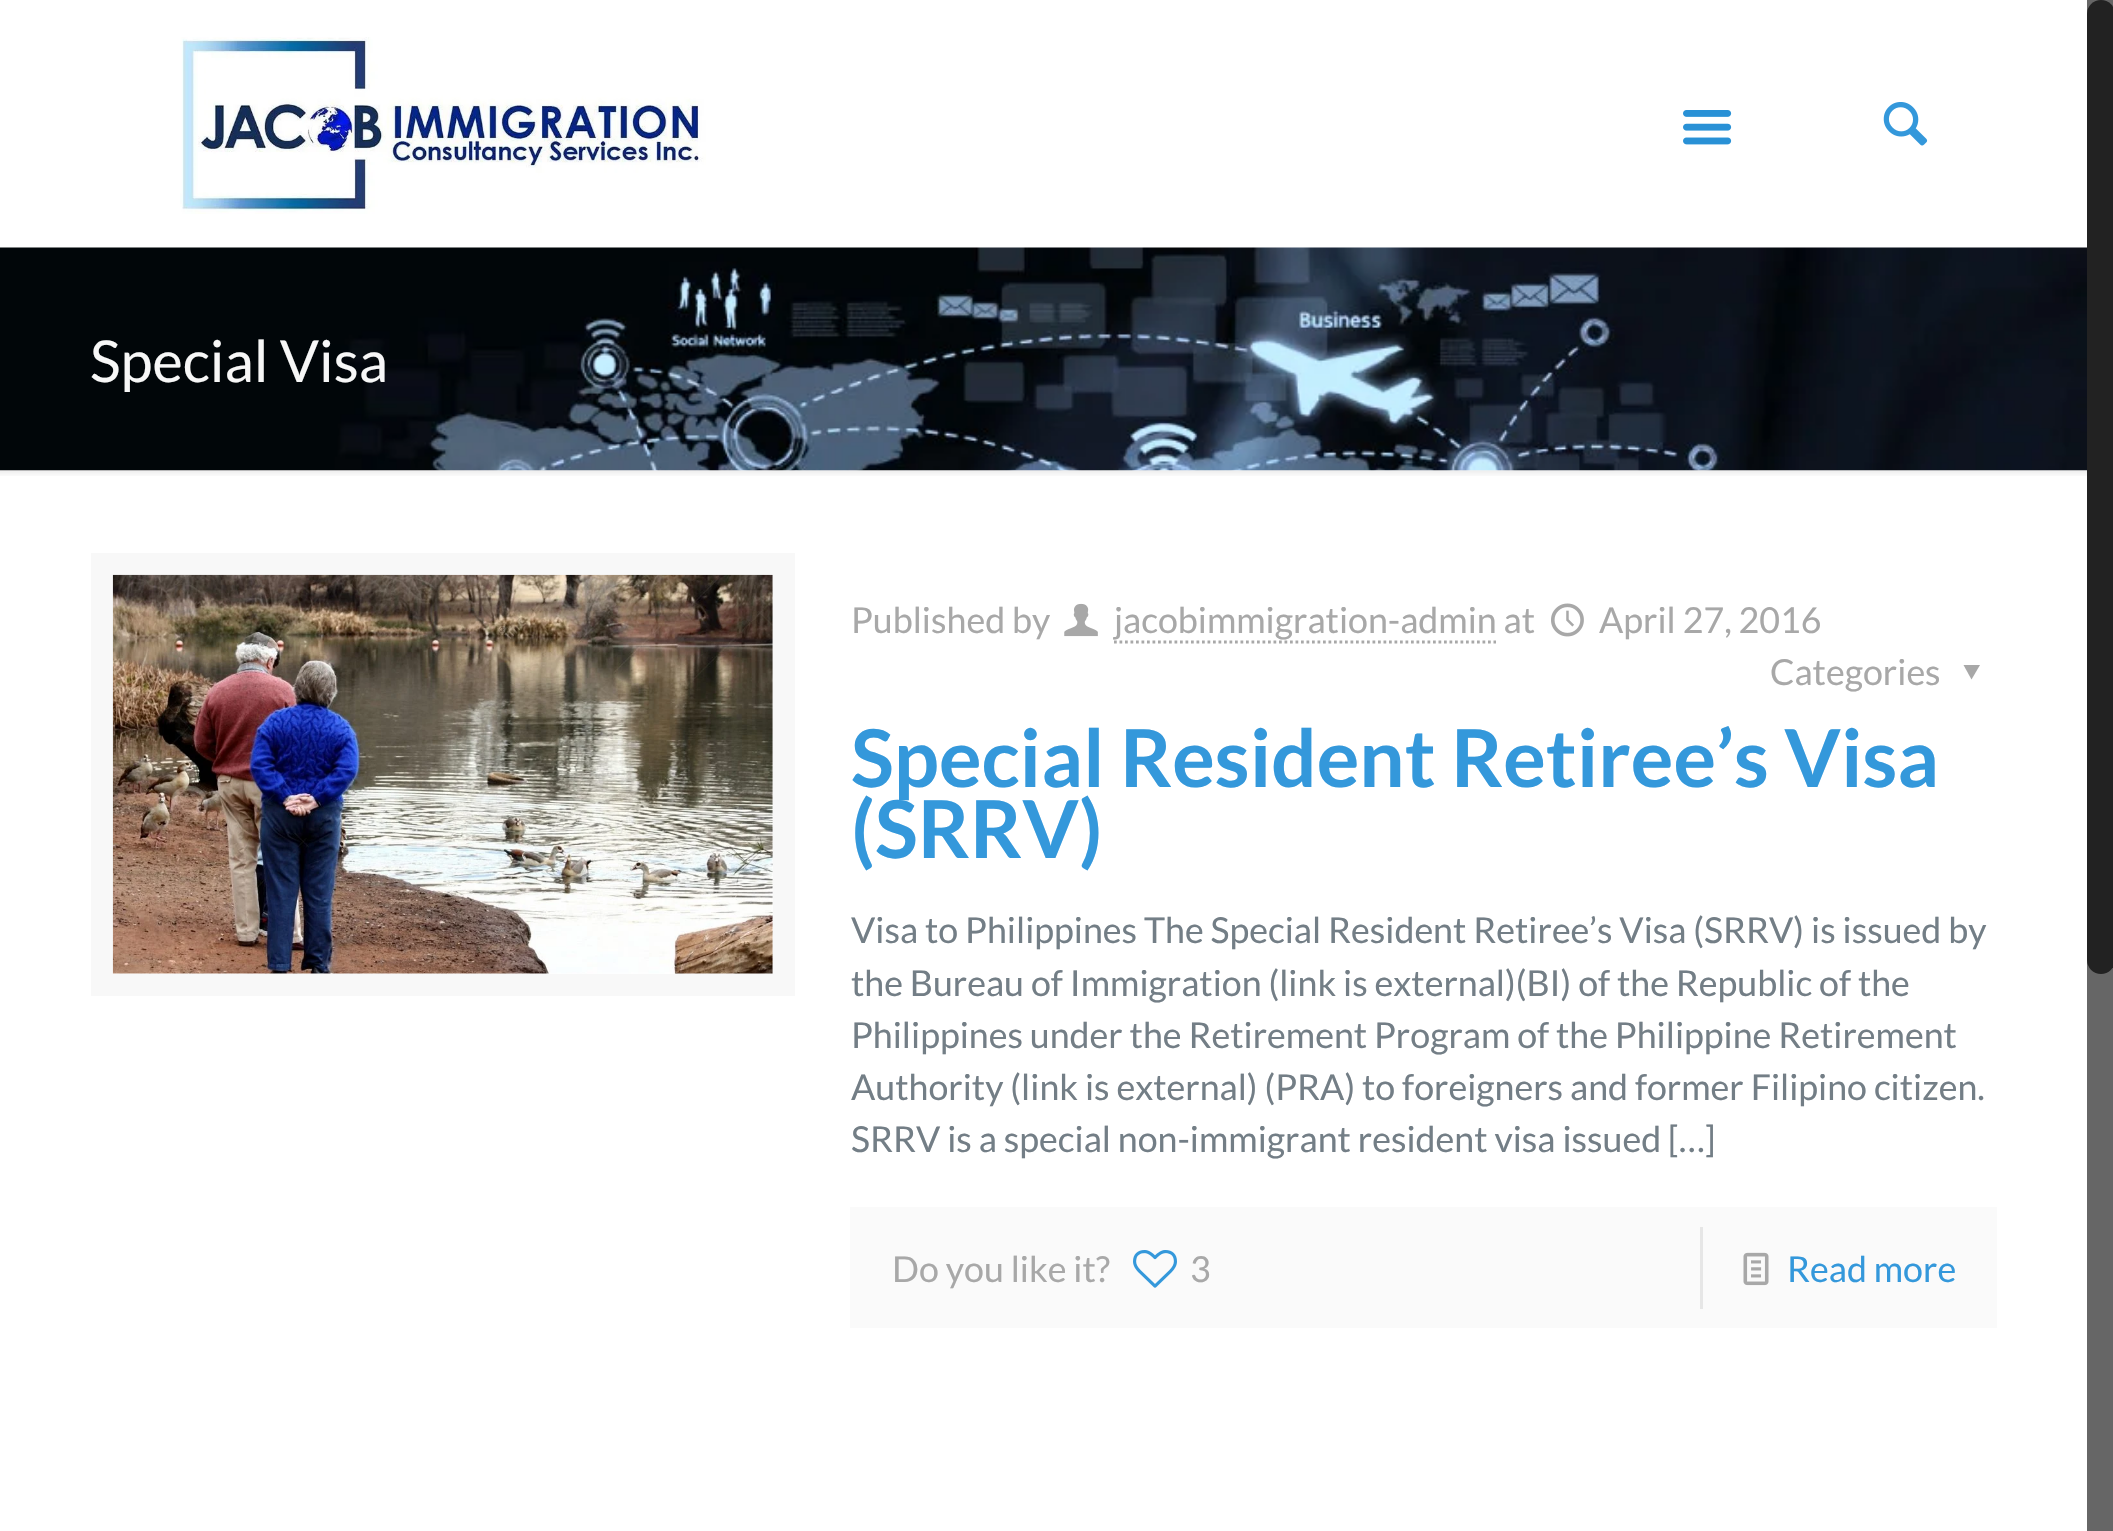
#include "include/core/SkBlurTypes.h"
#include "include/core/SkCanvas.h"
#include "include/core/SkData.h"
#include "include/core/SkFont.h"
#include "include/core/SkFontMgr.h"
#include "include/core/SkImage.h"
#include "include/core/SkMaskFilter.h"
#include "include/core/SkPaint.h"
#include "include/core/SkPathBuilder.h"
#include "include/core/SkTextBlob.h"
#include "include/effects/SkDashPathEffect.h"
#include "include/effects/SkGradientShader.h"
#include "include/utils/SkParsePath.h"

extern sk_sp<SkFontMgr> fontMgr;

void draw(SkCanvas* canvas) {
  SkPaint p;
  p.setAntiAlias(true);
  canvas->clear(SK_ColorWHITE);
  canvas->drawImageRect(SkImages::DeferredFromEncodedData(SkData::MakeFromFileName("images/1.png")), SkRect::MakeLTRB(180, 37, 706, 214), SkSamplingOptions());
  canvas->drawImageRect(SkImages::DeferredFromEncodedData(SkData::MakeFromFileName("images/2.png")), SkRect::MakeLTRB(1683, 110, 1732, 145), SkSamplingOptions());
  canvas->drawImageRect(SkImages::DeferredFromEncodedData(SkData::MakeFromFileName("images/3.png")), SkRect::MakeLTRB(1883, 102, 1928, 146), SkSamplingOptions());
  canvas->drawImageRect(SkImages::DeferredFromEncodedData(SkData::MakeFromFileName("images/4.png")), SkRect::MakeLTRB(0, 247, 2087, 471), SkSamplingOptions());
  canvas->drawImageRect(SkImages::DeferredFromEncodedData(SkData::MakeFromFileName("images/5.png")), SkRect::MakeLTRB(0, 470, 2087, 476), SkSamplingOptions());
  p.setStyle(SkPaint::kStroke_Style);
  p.setStrokeWidth(22);
  p.setColor(SkColorSetRGB(248, 248, 248));
  canvas->drawRect(SkRect::MakeLTRB(102, 564, 784, 985), p);
  canvas->drawImageRect(SkImages::DeferredFromEncodedData(SkData::MakeFromFileName("images/6.png")), SkRect::MakeLTRB(112, 574, 773, 974), SkSamplingOptions());
  canvas->drawImageRect(SkImages::DeferredFromEncodedData(SkData::MakeFromFileName("images/7.png")), SkRect::MakeLTRB(1064, 603, 1098, 637), SkSamplingOptions());
  p.setStrokeWidth(2.8f);
  p.setColor(SkColorSetRGB(168, 168, 168));
  p.setPathEffect(SkDashPathEffect::Make({{2.75f, 2.75f}}, 0));
  canvas->drawPath(SkPathBuilder().moveTo(1114, 642).lineTo(1496, 642).detach(), p);
  p.setPathEffect(nullptr);
  canvas->drawImageRect(SkImages::DeferredFromEncodedData(SkData::MakeFromFileName("images/8.png")), SkRect::MakeLTRB(1551, 603, 1584, 637), SkSamplingOptions());
  p.setStyle(SkPaint::kFill_Style);
  canvas->drawPath(SkPathBuilder().moveTo(1980, 665).lineTo(1971.5f, 679.5f).lineTo(1963.5f, 665).close().detach(), p);
  p.setColor(SkColorSetRGB(250, 250, 250));
  canvas->drawRect(SkRect::MakeLTRB(850, 1207, 1997, 1328), p);
  canvas->drawImageRect(SkImages::DeferredFromEncodedData(SkData::MakeFromFileName("images/9.png")), SkRect::MakeLTRB(1133, 1250, 1177, 1288), SkSamplingOptions());
  p.setColor(SkColorSetRGB(230, 230, 230));
  canvas->drawRect(SkRect::MakeLTRB(1700, 1227, 1703, 1309), p);
  canvas->drawImageRect(SkImages::DeferredFromEncodedData(SkData::MakeFromFileName("images/10.png")), SkRect::MakeLTRB(1743, 1252, 1769, 1286), SkSamplingOptions());
  p.setColor(SkColorSetRGB(102, 102, 102));
  canvas->drawRect(SkRect::MakeLTRB(2087, 0, 2113, 1531), p);
  p.setColor(SkColorSetRGB(34, 34, 34));
  canvas->drawRoundRect(SkRect::MakeLTRB(2087, 0, 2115, 974), 14, 14, p);
  SkFont font1(fontMgr->matchFamilyStyle("Lato", SkFontStyle::Normal()), 57.75f);
  font1.setSubpixel(true);
  p.setColor(SkColorSetRGB(247, 247, 247));
  canvas->drawString("Special Visa", 90, 382, font1, p);
  SkFont font2(fontMgr->matchFamilyStyle("Lato", SkFontStyle::Normal()), 35.75f);
  font2.setSubpixel(true);
  p.setColor(SkColorSetRGB(168, 168, 168));
  canvas->drawString("Published by", 851, 633, font2, p);
  canvas->drawString("jacobimmigration-admin at", 1114, 633, font2, p);
  canvas->drawString("April 27, 2016", 1599, 633, font2, p);
  canvas->drawString("Categories", 1770, 685, font2, p);
  SkFont font3(fontMgr->matchFamilyStyle("Lato", SkFontStyle::Bold()), 79.75f);
  font3.setSubpixel(true);
  p.setColor(SkColorSetRGB(52, 152, 219));
  canvas->drawString("Special Resident Retiree’s Visa", 851, 787, font3, p);
  canvas->drawString("(SRRV)", 851, 858, font3, p);
  p.setColor(SkColorSetRGB(115, 126, 134));
  canvas->drawString("Visa to Philippines The Special Resident Retiree’s Visa (SRRV) is issued by", 851, 943, font2, p);
  canvas->drawString("the Bureau of Immigration (link is external)(BI) of the Republic of the", 851, 996, font2, p);
  canvas->drawString("Philippines under the Retirement Program of the Philippine Retirement", 851, 1048, font2, p);
  canvas->drawString("Authority (link is external) (PRA) to foreigners and former Filipino citizen.", 851, 1100, font2, p);
  canvas->drawString("SRRV is a special non-immigrant resident visa issued […]", 851, 1152, font2, p);
  p.setColor(SkColorSetRGB(168, 168, 168));
  canvas->drawString("Do you like it?", 892, 1282, font2, p);
  canvas->drawString("3", 1190, 1282, font2, p);
  p.setColor(SkColorSetRGB(52, 152, 219));
  canvas->drawString("Read more", 1787, 1282, font2, p);
}
